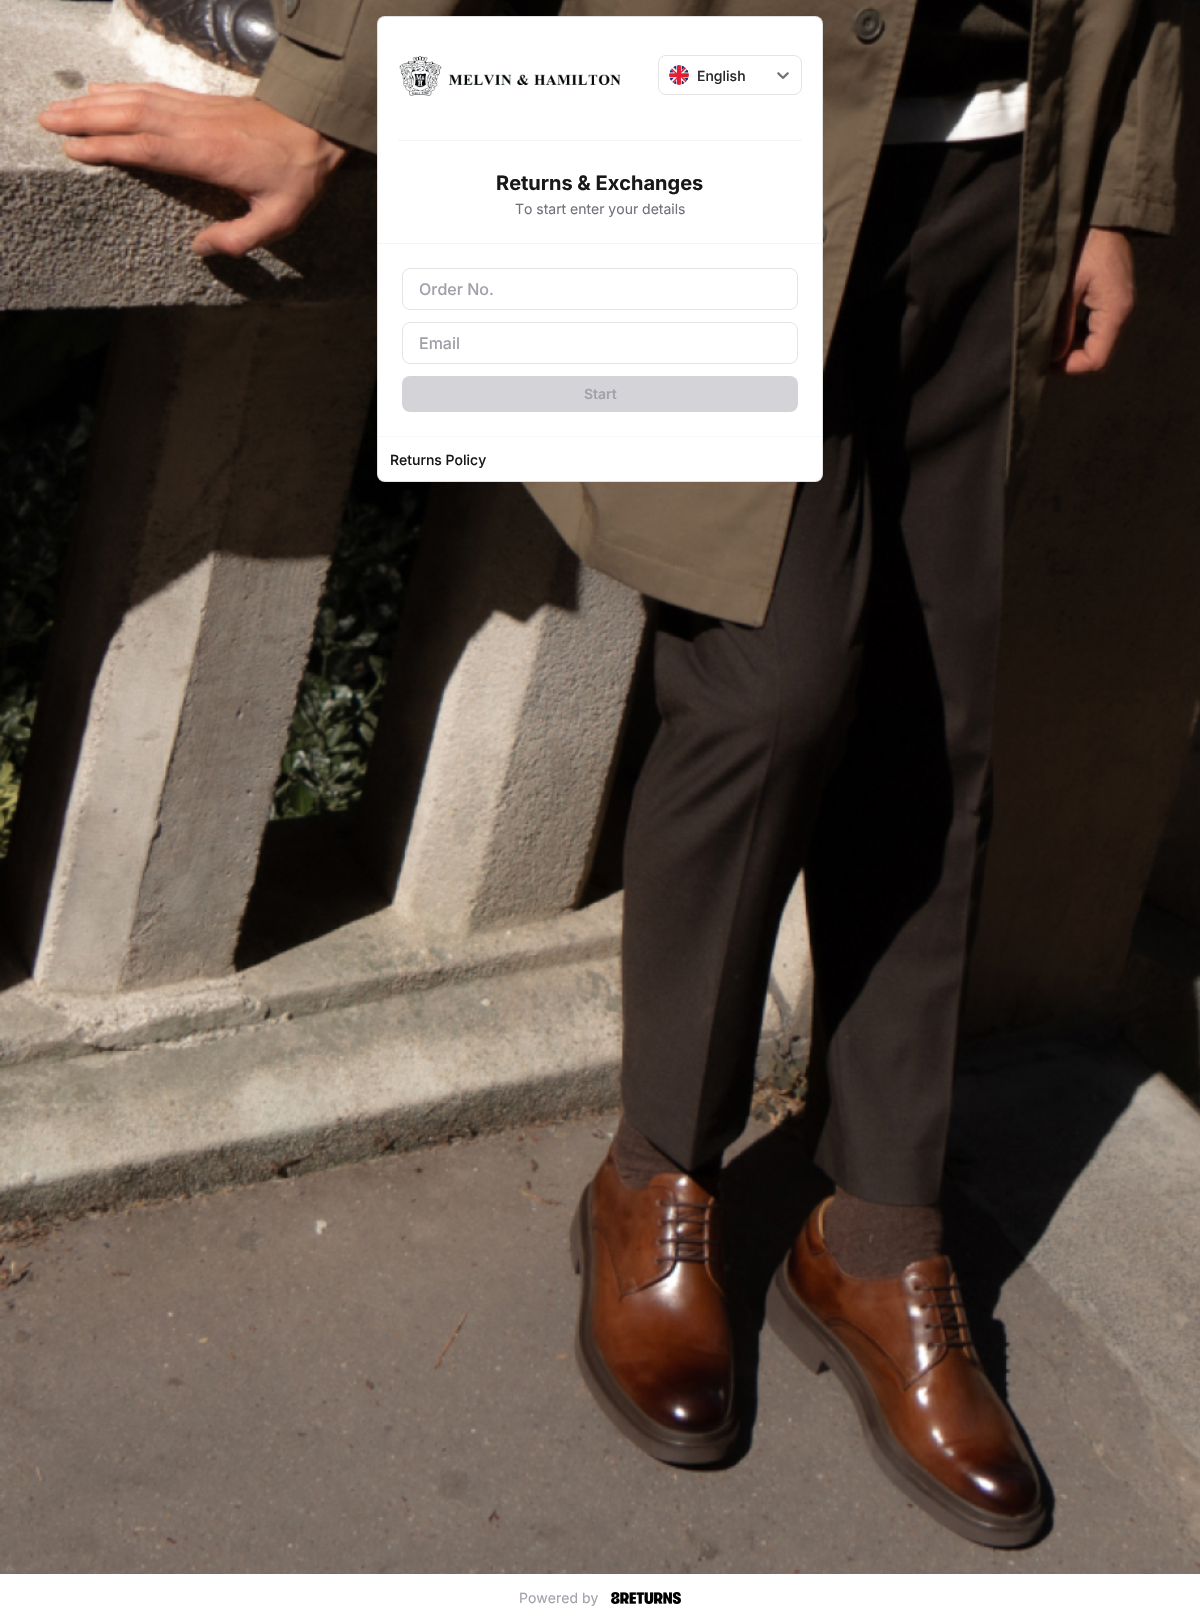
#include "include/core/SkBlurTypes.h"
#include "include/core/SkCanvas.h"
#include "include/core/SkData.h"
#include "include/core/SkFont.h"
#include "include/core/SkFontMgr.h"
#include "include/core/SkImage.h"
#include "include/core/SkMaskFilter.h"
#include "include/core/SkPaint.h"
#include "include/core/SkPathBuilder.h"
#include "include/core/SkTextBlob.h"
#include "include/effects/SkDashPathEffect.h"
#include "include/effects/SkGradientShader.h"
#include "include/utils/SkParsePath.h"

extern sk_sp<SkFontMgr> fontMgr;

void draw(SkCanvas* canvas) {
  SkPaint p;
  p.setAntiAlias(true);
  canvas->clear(SK_ColorWHITE);
  canvas->drawImageRect(SkImages::DeferredFromEncodedData(SkData::MakeFromFileName("images/1.png")), SkRect::MakeLTRB(0, 0, 1200, 1574), SkSamplingOptions());
  p.setColor(SK_ColorWHITE);
  canvas->drawRoundRect(SkRect::MakeLTRB(377, 16, 823, 482), 8, 8, p);
  p.setStyle(SkPaint::kStroke_Style);
  p.setStrokeWidth(1);
  p.setColor(SkColorSetARGB(31, 0, 0, 0));
  canvas->drawRoundRect(SkRect::MakeLTRB(377.5f, 16.5f, 822.5f, 481.5f), 7.5f, 7.5f, p);
  canvas->drawImageRect(SkImages::DeferredFromEncodedData(SkData::MakeFromFileName("images/2.png")), SkRect::MakeLTRB(399, 56, 621, 96), SkSamplingOptions());
  p.setColor(SkColorSetRGB(228, 228, 231));
  canvas->drawRoundRect(SkRect::MakeLTRB(658.5f, 55.5f, 801.5f, 94.5f), 7.5f, 7.5f, p);
  canvas->drawImageRect(SkImages::DeferredFromEncodedData(SkData::MakeFromFileName("images/3.png")), SkRect::MakeLTRB(669, 65, 689, 85), SkSamplingOptions());
  canvas->drawImageRect(SkImages::DeferredFromEncodedData(SkData::MakeFromFileName("images/4.png")), SkRect::MakeLTRB(777, 72, 789, 79), SkSamplingOptions());
  p.setStyle(SkPaint::kFill_Style);
  p.setColor(SkColorSetRGB(244, 244, 245));
  canvas->drawRect(SkRect::MakeLTRB(398, 140, 802, 141), p);
  canvas->drawRect(SkRect::MakeLTRB(378, 243, 822, 244), p);
  p.setStyle(SkPaint::kStroke_Style);
  p.setColor(SkColorSetRGB(228, 228, 231));
  canvas->drawRoundRect(SkRect::MakeLTRB(402.5f, 268.5f, 797.5f, 309.5f), 7.5f, 7.5f, p);
  canvas->drawRoundRect(SkRect::MakeLTRB(402.5f, 322.5f, 797.5f, 363.5f), 7.5f, 7.5f, p);
  p.setStyle(SkPaint::kFill_Style);
  p.setColor(SkColorSetRGB(212, 212, 216));
  canvas->drawRoundRect(SkRect::MakeLTRB(402, 376, 798, 412), 8, 8, p);
  p.setColor(SkColorSetRGB(248, 249, 250));
  canvas->drawRect(SkRect::MakeLTRB(378, 436, 822, 437), p);
  canvas->drawImageRect(SkImages::DeferredFromEncodedData(SkData::MakeFromFileName("images/5.png")), SkRect::MakeLTRB(611, 1592, 681, 1604), SkSamplingOptions());
  SkFont font1(fontMgr->matchFamilyStyle("Inter", SkFontStyle(500, SkFontStyle::kNormal_Width, SkFontStyle::kUpright_Slant)), 14);
  font1.setSubpixel(true);
  p.setColor(SkColorSetRGB(39, 39, 42));
  canvas->drawString("English", 697, 81, font1, p);
  SkFont font2(fontMgr->matchFamilyStyle("Inter", SkFontStyle::Bold()), 20);
  font2.setSubpixel(true);
  p.setColor(SkColorSetRGB(24, 24, 27));
  canvas->drawString("Returns & Exchanges", 496, 190, font2, p);
  SkFont font3(fontMgr->matchFamilyStyle("Inter", SkFontStyle::Normal()), 14);
  font3.setSubpixel(true);
  p.setColor(SkColorSetRGB(113, 113, 122));
  canvas->drawString("To start enter your details", 515, 214, font3, p);
  SkFont font4(fontMgr->matchFamilyStyle("Inter", SkFontStyle(500, SkFontStyle::kNormal_Width, SkFontStyle::kUpright_Slant)), 16);
  font4.setSubpixel(true);
  p.setColor(SkColorSetRGB(161, 161, 170));
  canvas->drawString("Order No.", 419, 295, font4, p);
  canvas->drawString("Email", 419, 349, font4, p);
  SkFont font5(fontMgr->matchFamilyStyle("Inter", SkFontStyle(600, SkFontStyle::kNormal_Width, SkFontStyle::kUpright_Slant)), 14);
  font5.setSubpixel(true);
  canvas->drawString("Start", 584, 399, font5, p);
  p.setColor(SkColorSetRGB(24, 24, 27));
  canvas->drawString("Returns Policy", 390, 465, font1, p);
  p.setColor(SkColorSetRGB(161, 161, 170));
  canvas->drawString("Powered by", 519, 1603, font3, p);
}
